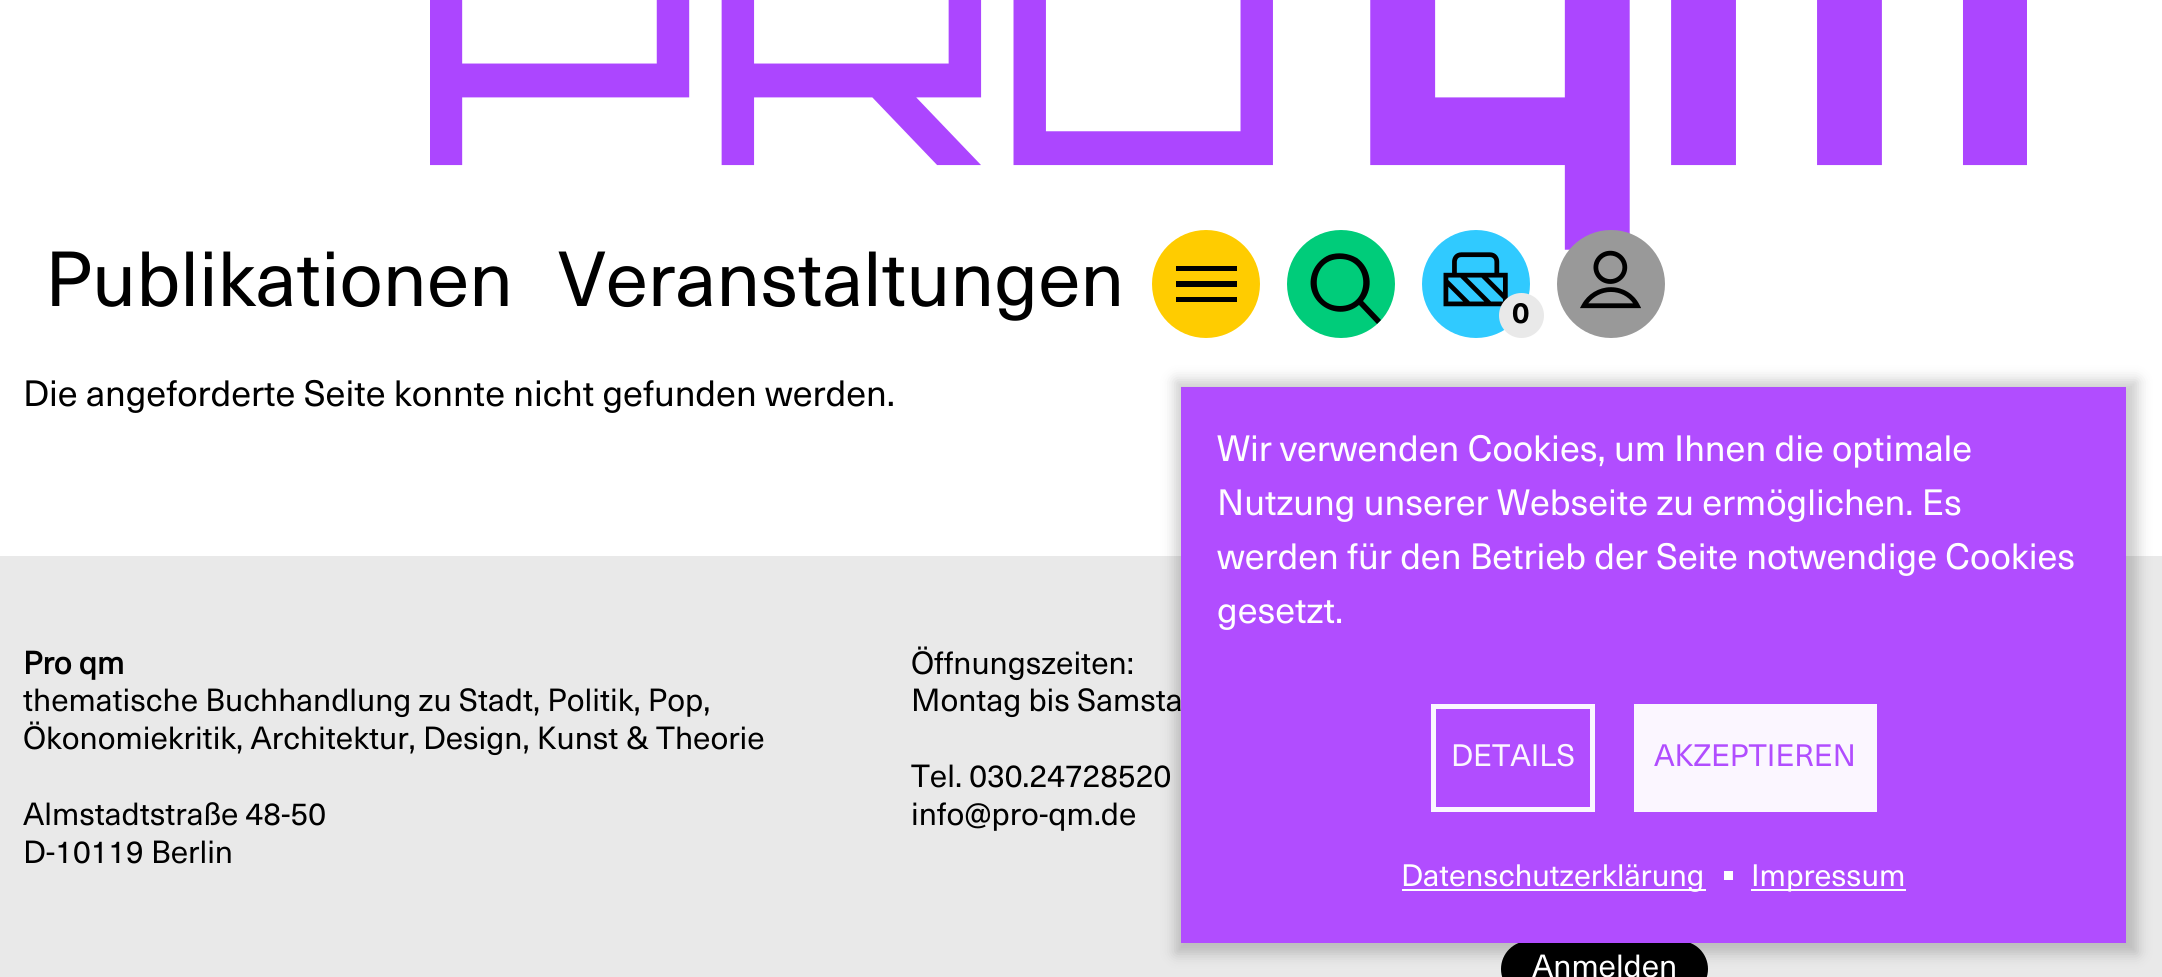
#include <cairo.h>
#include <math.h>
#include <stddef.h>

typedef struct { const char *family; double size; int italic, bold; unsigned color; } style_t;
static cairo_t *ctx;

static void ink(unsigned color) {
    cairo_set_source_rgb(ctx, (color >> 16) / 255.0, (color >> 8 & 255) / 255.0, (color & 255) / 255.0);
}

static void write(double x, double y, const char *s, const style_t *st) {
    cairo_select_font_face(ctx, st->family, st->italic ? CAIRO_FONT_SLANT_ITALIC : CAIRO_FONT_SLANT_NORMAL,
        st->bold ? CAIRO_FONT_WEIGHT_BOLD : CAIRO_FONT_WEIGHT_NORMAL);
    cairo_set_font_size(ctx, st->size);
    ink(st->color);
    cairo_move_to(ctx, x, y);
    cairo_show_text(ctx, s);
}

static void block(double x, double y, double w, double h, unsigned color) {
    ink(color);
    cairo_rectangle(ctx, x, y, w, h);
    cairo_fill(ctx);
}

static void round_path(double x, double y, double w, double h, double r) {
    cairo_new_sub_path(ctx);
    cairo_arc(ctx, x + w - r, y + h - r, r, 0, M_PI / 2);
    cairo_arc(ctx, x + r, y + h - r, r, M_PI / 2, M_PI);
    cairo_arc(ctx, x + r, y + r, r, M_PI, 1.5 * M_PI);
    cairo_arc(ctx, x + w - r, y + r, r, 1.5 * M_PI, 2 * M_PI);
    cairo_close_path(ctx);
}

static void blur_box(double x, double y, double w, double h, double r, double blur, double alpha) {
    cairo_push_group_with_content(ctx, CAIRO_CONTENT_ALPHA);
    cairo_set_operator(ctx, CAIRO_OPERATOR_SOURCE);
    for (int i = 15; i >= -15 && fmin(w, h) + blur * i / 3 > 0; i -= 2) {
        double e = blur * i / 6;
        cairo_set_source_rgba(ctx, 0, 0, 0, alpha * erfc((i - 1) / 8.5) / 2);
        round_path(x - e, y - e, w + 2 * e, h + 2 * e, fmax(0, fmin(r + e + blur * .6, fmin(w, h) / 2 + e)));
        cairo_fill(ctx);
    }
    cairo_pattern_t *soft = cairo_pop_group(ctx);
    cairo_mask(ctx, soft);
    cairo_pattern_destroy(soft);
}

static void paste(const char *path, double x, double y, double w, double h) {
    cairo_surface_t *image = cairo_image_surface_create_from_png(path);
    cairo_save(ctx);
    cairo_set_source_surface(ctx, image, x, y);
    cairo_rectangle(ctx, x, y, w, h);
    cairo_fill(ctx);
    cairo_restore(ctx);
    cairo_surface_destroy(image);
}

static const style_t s1 = {"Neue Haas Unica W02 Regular", 76.5, 0, 0, 0x000000};
static const style_t s2 = {"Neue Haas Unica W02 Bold", 29, 0, 1, 0x000000};
static const style_t s3 = {"Neue Haas Unica W02 Regular", 36, 0, 0, 0x000000};
static const style_t s4 = {"Neue Haas Unica W02 Regular", 36, 0, 0, 0xffffff};
static const style_t s5 = {"Neue Haas Unica W02 Regular", 30.5, 0, 0, 0xfbf6ff};
static const style_t s6 = {"Neue Haas Unica W02 Regular", 30.5, 0, 0, 0xb14dff};
static const style_t s7 = {"Neue Haas Unica W02 Regular", 30.5, 0, 0, 0xffffff};
static const style_t s8 = {"Neue Haas Unica W02 Regular", 31.5, 0, 1, 0x000000};
static const style_t s9 = {"Neue Haas Unica W02 Regular", 31.5, 0, 0, 0x000000};
static const style_t s10 = {"Neue Haas Unica W02 Regular", 31.5, 0, 0, 0xffffff};

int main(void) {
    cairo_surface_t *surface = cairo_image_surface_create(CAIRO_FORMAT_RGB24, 2162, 977);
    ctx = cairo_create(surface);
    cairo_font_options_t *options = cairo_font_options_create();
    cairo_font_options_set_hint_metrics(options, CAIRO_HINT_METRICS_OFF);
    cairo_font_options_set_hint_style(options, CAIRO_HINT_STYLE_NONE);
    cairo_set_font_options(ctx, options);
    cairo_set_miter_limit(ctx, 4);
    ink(0xffffff);
    cairo_paint(ctx);
    paste("pic1.png", 430, 0, 1597, 250);
    write(45, 306, "Publikationen", &s1);
    write(558, 306, "Veranstaltungen", &s1);
    ink(0xffcc00);
    cairo_new_path(ctx);
    cairo_arc(ctx, 1206, 284, 54, 0, 2 * M_PI);
    cairo_fill(ctx);
    block(1176, 297, 61, 5, 0x000000);
    block(1176, 266, 61, 5, 0x000000);
    block(1176, 281, 61, 6, 0x000000);
    ink(0x00cc7a);
    cairo_arc(ctx, 1341, 284, 54, 0, 2 * M_PI);
    cairo_fill(ctx);
    ink(0x000000);
    cairo_new_path(ctx);
    cairo_move_to(ctx, 1363, 301);
    cairo_curve_to(ctx, 1374, 288, 1371, 268, 1357, 258);
    cairo_curve_to(ctx, 1348, 253, 1338, 252, 1329, 255);
    cairo_curve_to(ctx, 1322, 258, 1316, 264, 1313, 271);
    cairo_curve_to(ctx, 1301, 300, 1336, 324, 1359, 305);
    cairo_line_to(ctx, 1377, 324);
    cairo_line_to(ctx, 1381, 320);
    cairo_close_path(ctx);
    cairo_move_to(ctx, 1340, 306);
    cairo_curve_to(ctx, 1309, 306, 1309, 259, 1340, 259);
    cairo_curve_to(ctx, 1371, 259, 1371, 306, 1340, 306);
    cairo_close_path(ctx);
    cairo_fill(ctx);
    ink(0x30caff);
    cairo_arc(ctx, 1476, 284, 54, 0, 2 * M_PI);
    cairo_fill(ctx);
    paste("pic2.png", 1443, 252, 65, 55);
    ink(0xe9e9e9);
    cairo_arc(ctx, 1521.5, 315.5, 22.5, 0, 2 * M_PI);
    cairo_fill(ctx);
    write(1512, 323, "0", &s2);
    ink(0x999999);
    cairo_new_path(ctx);
    cairo_arc(ctx, 1611, 284, 54, 0, 2 * M_PI);
    cairo_fill(ctx);
    paste("pic3.png", 1580, 250, 61, 59);
    write(23, 406, "Die angeforderte Seite konnte nicht gefunden werden.", &s3);
    block(0, 556, 2162, 421, 0xe9e9e9);
    ink(0x000000);
    round_path(1501, 941, 207, 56, 28);
    cairo_fill(ctx);
    ink(0x000000);
    blur_box(1175, 380, 963, 574, 0, 7, 0.2);
    block(1181, 387, 945, 556, 0xb14dff);
    write(1217, 461, "Wir verwenden Cookies, um Ihnen die optimale", &s4);
    write(1217, 515, "Nutzung unserer Webseite zu ermöglichen. Es", &s4);
    write(1217, 569, "werden für den Betrieb der Seite notwendige Cookies", &s4);
    write(1217, 623, "gesetzt.", &s4);
    cairo_rectangle(ctx, 1433.5, 706.5, 159, 103);
    ink(0xfbf6ff);
    cairo_set_line_width(ctx, 5);
    cairo_stroke(ctx);
    write(1451, 766, "DETAILS", &s5);
    block(1634, 704, 243, 108, 0xfbf6ff);
    write(1654, 766, "AKZEPTIEREN", &s6);
    block(1402, 889, 304, 2, 0xffffff);
    write(1401, 886, "Datenschutzerklärung", &s7);
    block(1724, 871, 9, 9, 0xffffff);
    block(1751, 889, 155, 2, 0xffffff);
    write(1751, 886, "Impressum", &s7);
    write(23, 674, "Pro qm", &s8);
    write(23, 711, "thematische Buchhandlung zu Stadt, Politik, Pop,", &s9);
    write(23, 749, "Ökonomiekritik, Architektur, Design, Kunst & Theorie", &s9);
    write(23, 825, "Almstadtstraße 48-50", &s9);
    write(23, 863, "D-10119 Berlin", &s9);
    write(911, 674, "Öffnungszeiten:", &s9);
    write(911, 711, "Montag bis Samsta", &s9);
    write(911, 787, "Tel. 030.24728520", &s9);
    write(911, 825, "info@pro-qm.de", &s9);
    write(1532, 977, "Anmelden", &s10);
    cairo_surface_write_to_png(surface, "screenshot.png");
    cairo_font_options_destroy(options);
    cairo_destroy(ctx);
    cairo_surface_destroy(surface);
    return 0;
}
